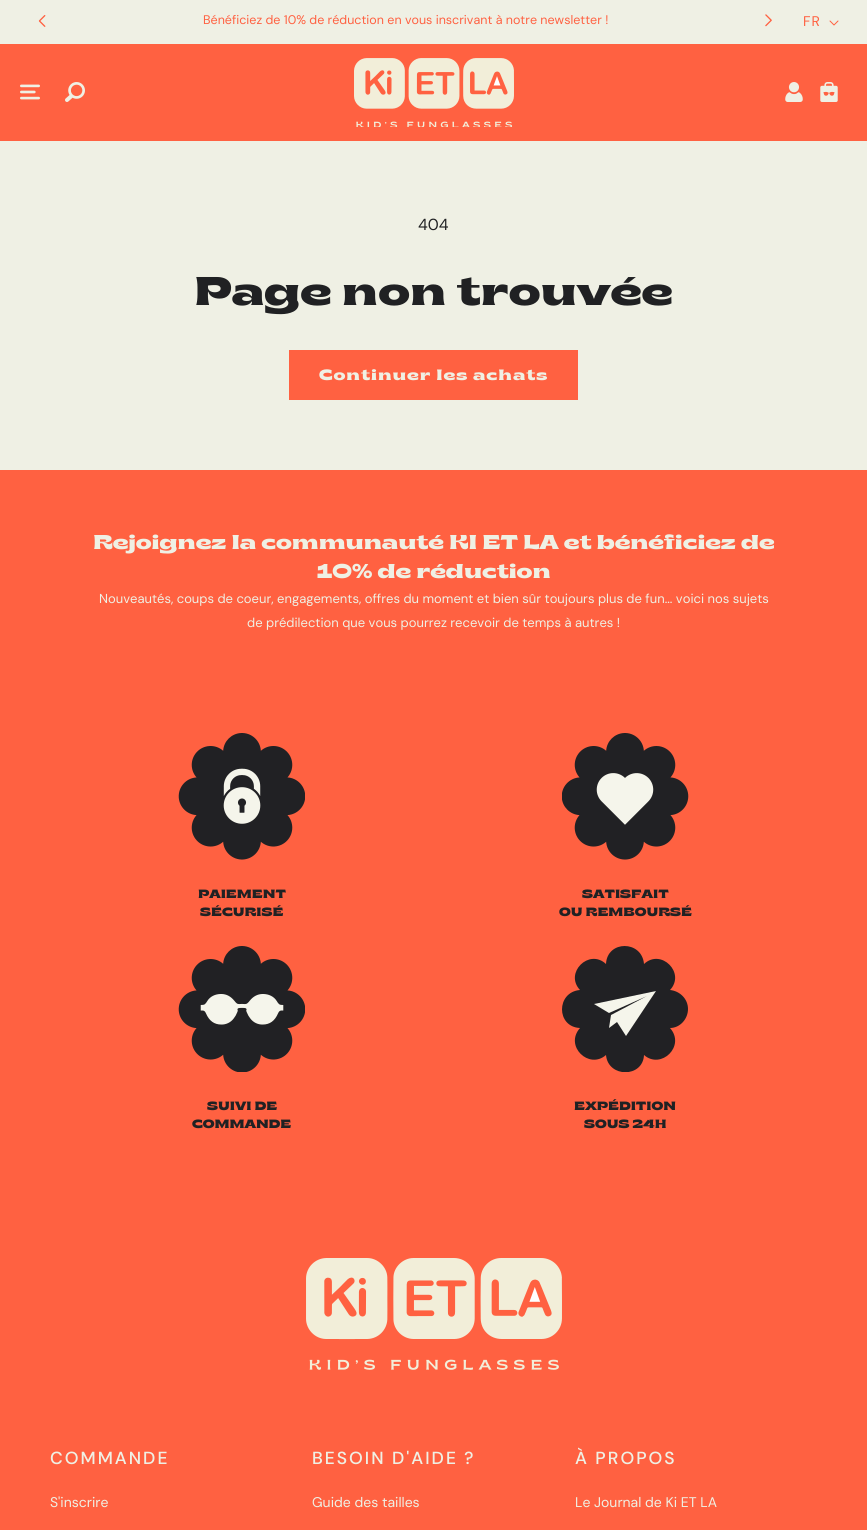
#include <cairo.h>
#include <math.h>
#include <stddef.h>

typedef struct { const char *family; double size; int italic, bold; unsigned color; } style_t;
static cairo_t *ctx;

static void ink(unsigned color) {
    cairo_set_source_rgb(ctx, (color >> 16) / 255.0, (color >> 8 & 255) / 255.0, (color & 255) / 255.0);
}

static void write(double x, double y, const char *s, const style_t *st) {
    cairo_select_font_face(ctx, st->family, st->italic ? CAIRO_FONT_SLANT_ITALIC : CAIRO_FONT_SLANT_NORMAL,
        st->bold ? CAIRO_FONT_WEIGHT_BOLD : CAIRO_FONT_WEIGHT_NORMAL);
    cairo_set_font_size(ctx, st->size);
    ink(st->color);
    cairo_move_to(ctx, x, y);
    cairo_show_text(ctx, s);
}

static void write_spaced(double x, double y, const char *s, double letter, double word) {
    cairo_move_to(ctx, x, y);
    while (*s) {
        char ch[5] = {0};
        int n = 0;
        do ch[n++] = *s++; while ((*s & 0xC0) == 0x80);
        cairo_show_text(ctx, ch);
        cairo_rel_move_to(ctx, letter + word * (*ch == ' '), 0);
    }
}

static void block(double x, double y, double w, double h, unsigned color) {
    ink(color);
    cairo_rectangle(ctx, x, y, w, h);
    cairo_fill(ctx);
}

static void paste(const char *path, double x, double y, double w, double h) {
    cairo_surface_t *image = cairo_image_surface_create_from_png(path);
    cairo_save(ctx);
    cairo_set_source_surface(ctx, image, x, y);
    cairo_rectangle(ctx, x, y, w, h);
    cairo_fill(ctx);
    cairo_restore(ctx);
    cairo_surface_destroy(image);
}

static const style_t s1 = {"DM Sans", 12.5, 0, 0, 0xff6141};
static const style_t s2 = {"DM Sans", 16, 0, 0, 0x202123};
static const style_t s3 = {"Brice", 40, 0, 1, 0x202123};
static const style_t s4 = {"Brice", 20, 0, 1, 0xeff0e4};
static const style_t s5 = {"DM Sans", 13, 0, 0, 0xeff0e4};
static const style_t s6 = {"Brice", 12, 0, 1, 0x202123};
static const style_t s7 = {"DM Sans", 14, 0, 0, 0xeff0e4};

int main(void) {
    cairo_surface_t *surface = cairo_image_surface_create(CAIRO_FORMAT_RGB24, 867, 1530);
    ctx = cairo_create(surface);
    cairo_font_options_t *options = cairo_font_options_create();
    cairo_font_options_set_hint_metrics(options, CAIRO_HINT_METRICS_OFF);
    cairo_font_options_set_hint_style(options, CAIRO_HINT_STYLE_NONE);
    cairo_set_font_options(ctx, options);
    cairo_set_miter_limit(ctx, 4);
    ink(0xeff0e4);
    cairo_paint(ctx);
    paste("pic1.png", 38, 15, 8, 12);
    write(203, 24, "Bénéficiez de 10% de réduction en vous inscrivant à notre newsletter !", &s1);
    paste("pic2.png", 765, 14, 7, 13);
    cairo_set_font_size(ctx, 14);
    write_spaced(803, 26, "FR", 1, 0);
    paste("pic3.png", 829, 20, 10, 6);
    block(0, 44, 867, 97, 0xff6141);
    paste("pic4.png", 20, 84, 20, 16);
    paste("pic5.png", 65, 82, 20, 20);
    paste("pic6.png", 354, 58, 160, 69);
    paste("pic7.png", 785, 82, 18, 20);
    paste("pic8.png", 820, 82, 18, 20);
    write(418, 230, "404", &s2);
    write(194, 305, "Page non trouvée", &s3);
    block(289, 350, 289, 50, 0xff6141);
    cairo_set_font_size(ctx, 15);
    ink(0xeff0e4);
    write_spaced(319, 380, "Continuer les achats", 1, 0);
    block(0, 470, 867, 1060, 0xff6141);
    write(93, 549, "Rejoignez la communauté KI ET LA et bénéficiez de", &s4);
    write(317, 578, "10% de réduction", &s4);
    write(99, 603, "Nouveautés, coups de coeur, engagements, offres du moment et bien sûr toujours plus de fun... voici nos sujets", &s5);
    write(247, 627, "de prédilection que vous pourrez recevoir de temps à autres !", &s5);
    paste("pic9.png", 178, 733, 127, 127);
    write(198, 898, "PAIEMENT", &s6);
    write(200, 916, "SÉCURISÉ", &s6);
    paste("pic10.png", 562, 733, 127, 127);
    write(582, 898, "SATISFAIT", &s6);
    write(559, 916, "OU REMBOURSÉ", &s6);
    paste("pic11.png", 178, 946, 127, 126);
    write(207, 1110, "SUIVI DE", &s6);
    write(192, 1128, "COMMANDE", &s6);
    cairo_save(ctx);
    cairo_rectangle(ctx, 562, 946, 127, 126);
    cairo_clip(ctx);
    ink(0x212124);
    cairo_new_path(ctx);
    cairo_move_to(ctx, 688, 1009);
    cairo_curve_to(ctx, 688, 999, 680, 991, 670, 990);
    cairo_curve_to(ctx, 686, 973, 661, 948, 644, 964);
    cairo_curve_to(ctx, 642, 940, 607, 940, 606, 964);
    cairo_curve_to(ctx, 589, 948, 564, 973, 580, 990);
    cairo_curve_to(ctx, 556, 992, 556, 1027, 580, 1028);
    cairo_curve_to(ctx, 564, 1046, 589, 1070, 606, 1055);
    cairo_curve_to(ctx, 608, 1078, 643, 1078, 644, 1055);
    cairo_curve_to(ctx, 661, 1070, 686, 1046, 670, 1028);
    cairo_curve_to(ctx, 680, 1028, 688, 1019, 688, 1009);
    cairo_fill(ctx);
    cairo_restore(ctx);
    ink(0xf5f5eb);
    cairo_new_path(ctx);
    cairo_move_to(ctx, 594, 1004);
    cairo_line_to(ctx, 656, 991);
    cairo_line_to(ctx, 626, 1036);
    cairo_line_to(ctx, 617, 1022);
    cairo_line_to(ctx, 609, 1028);
    cairo_line_to(ctx, 611, 1015);
    cairo_line_to(ctx, 647, 996);
    cairo_line_to(ctx, 609, 1013);
    cairo_close_path(ctx);
    cairo_fill(ctx);
    write(574, 1110, "EXPÉDITION", &s6);
    write(584, 1128, "SOUS 24H", &s6);
    paste("pic12.png", 306, 1258, 256, 112);
    cairo_select_font_face(ctx, "DM Sans Medium", CAIRO_FONT_SLANT_NORMAL, CAIRO_FONT_WEIGHT_NORMAL);
    cairo_set_font_size(ctx, 17.5);
    ink(0xeff0e4);
    write_spaced(50, 1464, "COMMANDE", 2, 0);
    write(50, 1507, "S'inscrire", &s7);
    cairo_select_font_face(ctx, "DM Sans Medium", CAIRO_FONT_SLANT_NORMAL, CAIRO_FONT_WEIGHT_NORMAL);
    cairo_set_font_size(ctx, 17.5);
    write_spaced(312, 1464, "BESOIN D'AIDE ?", 2, 0);
    write(312, 1507, "Guide des tailles", &s7);
    cairo_select_font_face(ctx, "DM Sans Medium", CAIRO_FONT_SLANT_NORMAL, CAIRO_FONT_WEIGHT_NORMAL);
    cairo_set_font_size(ctx, 17.5);
    write_spaced(575, 1464, "À PROPOS", 2, 0);
    write(575, 1507, "Le Journal de Ki ET LA", &s7);
    cairo_surface_write_to_png(surface, "screenshot.png");
    cairo_font_options_destroy(options);
    cairo_destroy(ctx);
    cairo_surface_destroy(surface);
    return 0;
}
